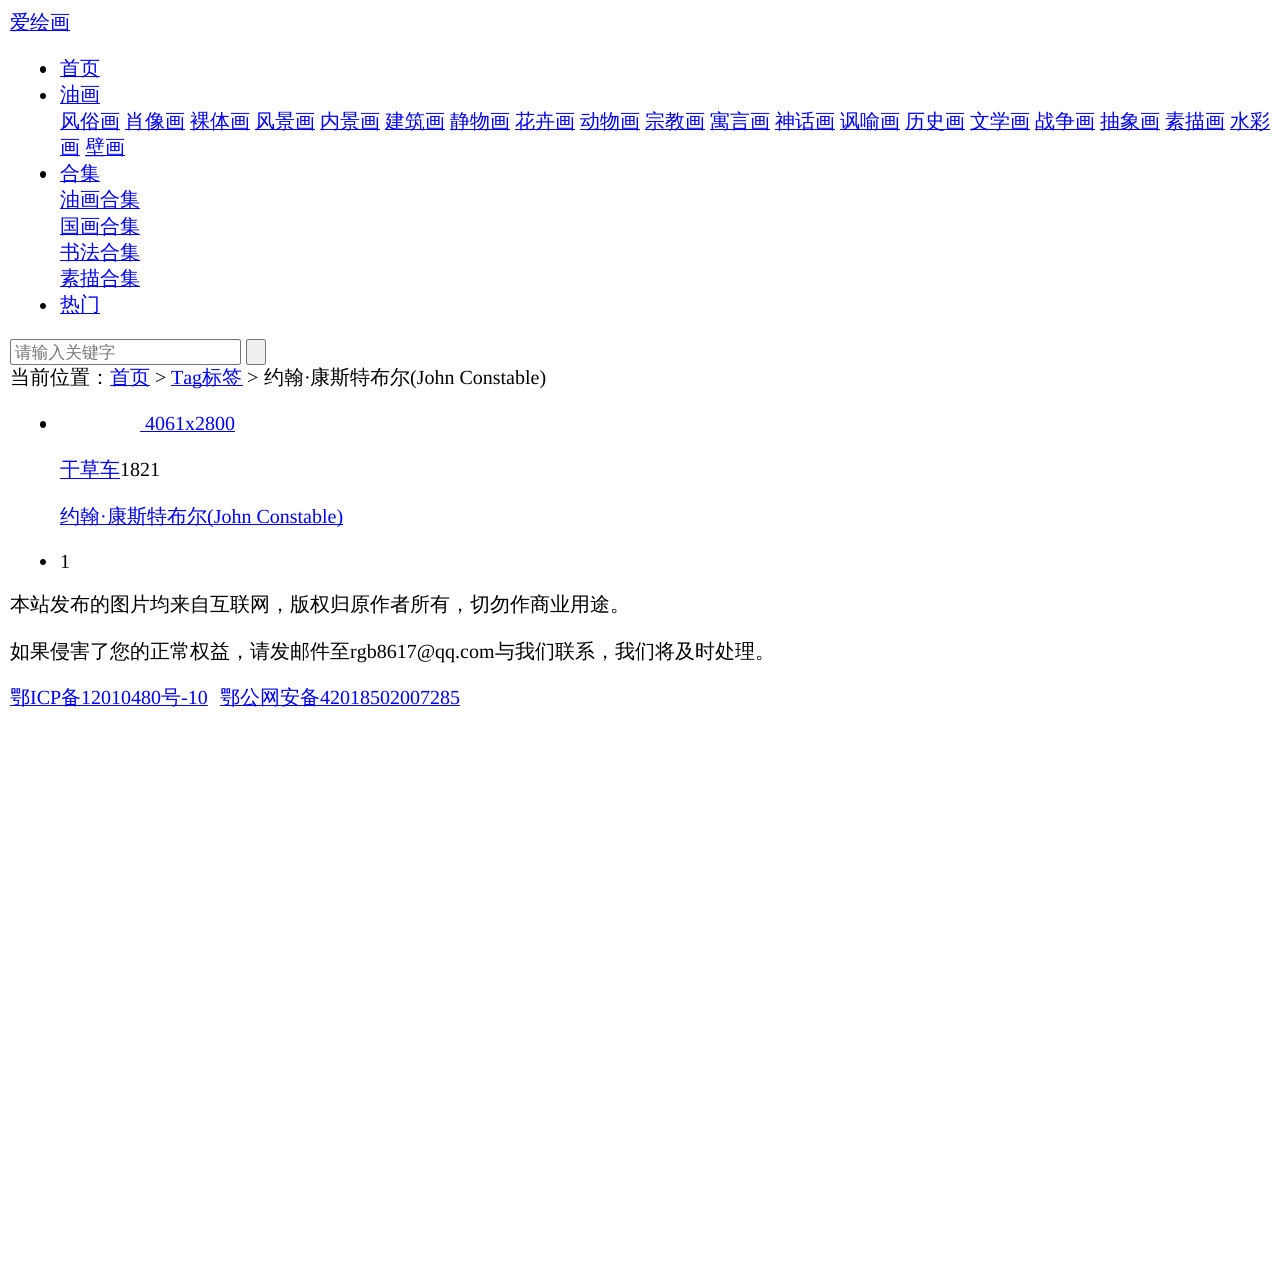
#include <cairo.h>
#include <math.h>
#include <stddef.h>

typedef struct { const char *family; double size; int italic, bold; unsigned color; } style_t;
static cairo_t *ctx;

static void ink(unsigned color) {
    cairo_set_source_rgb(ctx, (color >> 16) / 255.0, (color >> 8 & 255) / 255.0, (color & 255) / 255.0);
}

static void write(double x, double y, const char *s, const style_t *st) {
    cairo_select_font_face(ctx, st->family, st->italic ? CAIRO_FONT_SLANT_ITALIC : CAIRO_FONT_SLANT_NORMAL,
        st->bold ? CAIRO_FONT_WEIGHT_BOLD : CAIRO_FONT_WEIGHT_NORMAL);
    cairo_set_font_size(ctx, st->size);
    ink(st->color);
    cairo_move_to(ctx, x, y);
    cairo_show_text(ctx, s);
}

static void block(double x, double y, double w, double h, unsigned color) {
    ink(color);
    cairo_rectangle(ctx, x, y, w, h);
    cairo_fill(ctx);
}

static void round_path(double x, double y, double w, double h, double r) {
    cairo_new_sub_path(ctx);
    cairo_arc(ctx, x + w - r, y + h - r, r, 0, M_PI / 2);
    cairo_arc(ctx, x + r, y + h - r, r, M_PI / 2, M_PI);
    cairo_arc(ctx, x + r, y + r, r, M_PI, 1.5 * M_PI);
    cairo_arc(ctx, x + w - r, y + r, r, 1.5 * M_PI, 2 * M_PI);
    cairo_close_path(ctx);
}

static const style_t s1 = {"WenQuanYi Zen Hei Medium", 20, 0, 0, 0x0000ee};
static const style_t s2 = {"WenQuanYi Zen Hei Medium", 16.75, 0, 0, 0x757575};
static const style_t s3 = {"WenQuanYi Zen Hei Medium", 20, 0, 0, 0x000000};
static const style_t s4 = {"Liberation Serif", 20, 0, 0, 0x000000};
static const style_t s5 = {"Liberation Serif", 20, 0, 0, 0x0000ee};

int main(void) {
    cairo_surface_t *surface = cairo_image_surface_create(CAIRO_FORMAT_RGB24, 1281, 1279);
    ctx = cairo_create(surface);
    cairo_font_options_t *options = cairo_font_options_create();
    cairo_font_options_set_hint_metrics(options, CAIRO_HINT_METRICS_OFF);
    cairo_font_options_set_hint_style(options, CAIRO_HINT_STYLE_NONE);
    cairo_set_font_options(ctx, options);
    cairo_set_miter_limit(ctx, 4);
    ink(0xffffff);
    cairo_paint(ctx);
    block(10, 30, 60, 1, 0x0000ee);
    write(10, 29, "爱绘画", &s1);
    ink(0x000000);
    round_path(40, 66, 6, 7, 3);
    cairo_fill(ctx);
    block(60, 76, 40, 1, 0x0000ee);
    write(60, 75, "首页", &s1);
    ink(0x000000);
    cairo_new_path(ctx);
    cairo_arc(ctx, 43, 96, 3, 0, 2 * M_PI);
    cairo_fill(ctx);
    block(60, 103, 40, 1, 0x0000ee);
    write(60, 101, "油画", &s1);
    block(60, 129, 60, 1, 0x0000ee);
    write(60, 128, "风俗画", &s1);
    block(125, 129, 60, 1, 0x0000ee);
    write(125, 128, "肖像画", &s1);
    block(190, 129, 60, 1, 0x0000ee);
    write(190, 128, "裸体画", &s1);
    block(255, 129, 60, 1, 0x0000ee);
    write(255, 128, "风景画", &s1);
    block(320, 129, 60, 1, 0x0000ee);
    write(320, 128, "内景画", &s1);
    block(385, 129, 60, 1, 0x0000ee);
    write(385, 128, "建筑画", &s1);
    block(450, 129, 60, 1, 0x0000ee);
    write(450, 128, "静物画", &s1);
    block(515, 129, 60, 1, 0x0000ee);
    write(515, 128, "花卉画", &s1);
    block(580, 129, 60, 1, 0x0000ee);
    write(580, 128, "动物画", &s1);
    block(645, 129, 60, 1, 0x0000ee);
    write(645, 128, "宗教画", &s1);
    block(710, 129, 60, 1, 0x0000ee);
    write(710, 128, "寓言画", &s1);
    block(775, 129, 60, 1, 0x0000ee);
    write(775, 128, "神话画", &s1);
    block(840, 129, 60, 1, 0x0000ee);
    write(840, 128, "讽喻画", &s1);
    block(905, 129, 60, 1, 0x0000ee);
    write(905, 128, "历史画", &s1);
    block(970, 129, 60, 1, 0x0000ee);
    write(970, 128, "文学画", &s1);
    block(1035, 129, 60, 1, 0x0000ee);
    write(1035, 128, "战争画", &s1);
    block(1100, 129, 60, 1, 0x0000ee);
    write(1100, 128, "抽象画", &s1);
    block(1165, 129, 60, 1, 0x0000ee);
    write(1165, 128, "素描画", &s1);
    block(1230, 129, 40, 1, 0x0000ee);
    write(1230, 128, "水彩", &s1);
    block(60, 155, 20, 1, 0x0000ee);
    write(60, 154, "画", &s1);
    block(85, 155, 40, 1, 0x0000ee);
    write(85, 154, "壁画", &s1);
    ink(0x000000);
    round_path(40, 171, 6, 7, 3);
    cairo_fill(ctx);
    block(60, 181, 40, 1, 0x0000ee);
    write(60, 180, "合集", &s1);
    block(60, 208, 80, 1, 0x0000ee);
    write(60, 206, "油画合集", &s1);
    block(60, 234, 80, 1, 0x0000ee);
    write(60, 233, "国画合集", &s1);
    block(60, 260, 80, 1, 0x0000ee);
    write(60, 259, "书法合集", &s1);
    block(60, 286, 80, 1, 0x0000ee);
    write(60, 285, "素描合集", &s1);
    ink(0x000000);
    cairo_new_path(ctx);
    cairo_arc(ctx, 43, 306, 3, 0, 2 * M_PI);
    cairo_fill(ctx);
    block(60, 313, 40, 1, 0x0000ee);
    write(60, 311, "热门", &s1);
    round_path(10.5, 339.5, 230, 25, 2);
    ink(0x767676);
    cairo_set_line_width(ctx, 1);
    cairo_stroke(ctx);
    write(15, 358, "请输入关键字", &s2);
    ink(0xefefef);
    round_path(246.5, 339.5, 19, 25, 2);
    cairo_fill_preserve(ctx);
    ink(0x767676);
    cairo_stroke(ctx);
    write(10, 384, "当前位置：", &s3);
    block(110, 385, 40, 1, 0x0000ee);
    write(110, 384, "首页", &s1);
    write(155, 384, ">", &s4);
    block(171, 385, 72, 1, 0x0000ee);
    write(171, 384, "Tag", &s5);
    write(202, 384, "标签", &s1);
    write(247, 384, ">", &s4);
    write(264, 384, "约翰", &s3);
    write(304, 384, "·", &s4);
    write(310, 384, "康斯特布尔", &s3);
    write(410, 384, "(John Constable)", &s4);
    round_path(40, 421, 6, 7, 3);
    cairo_fill(ctx);
    write(145, 430, "4061x2800", &s5);
    block(140, 431, 95, 1, 0x0000ee);
    block(60, 478, 60, 1, 0x0000ee);
    write(60, 476, "干草车", &s1);
    write(120, 476, "1821", &s4);
    block(60, 524, 283, 1, 0x0000ee);
    write(60, 523, "约翰", &s1);
    write(100, 523, "·", &s5);
    write(107, 523, "康斯特布尔", &s1);
    write(207, 523, "(John Constable)", &s5);
    ink(0x000000);
    cairo_new_path(ctx);
    cairo_arc(ctx, 43, 562, 3, 0, 2 * M_PI);
    cairo_fill(ctx);
    write(60, 568, "1", &s4);
    write(10, 611, "本站发布的图片均来自互联网，版权归原作者所有，切勿作商业用途。", &s3);
    write(10, 658, "如果侵害了您的正常权益，请发邮件至", &s3);
    write(350, 658, "rgb8617@qq.com", &s4);
    write(495, 658, "与我们联系，我们将及时处理。", &s3);
    block(10, 705, 198, 1, 0x0000ee);
    write(10, 704, "鄂", &s1);
    write(30, 704, "ICP", &s5);
    write(61, 704, "备", &s1);
    write(81, 704, "12010480", &s5);
    write(161, 704, "号", &s1);
    write(181, 704, "-10", &s5);
    block(220, 705, 240, 1, 0x0000ee);
    write(220, 704, "鄂公网安备", &s1);
    write(320, 704, "42018502007285", &s5);
    cairo_surface_write_to_png(surface, "screenshot.png");
    cairo_font_options_destroy(options);
    cairo_destroy(ctx);
    cairo_surface_destroy(surface);
    return 0;
}
